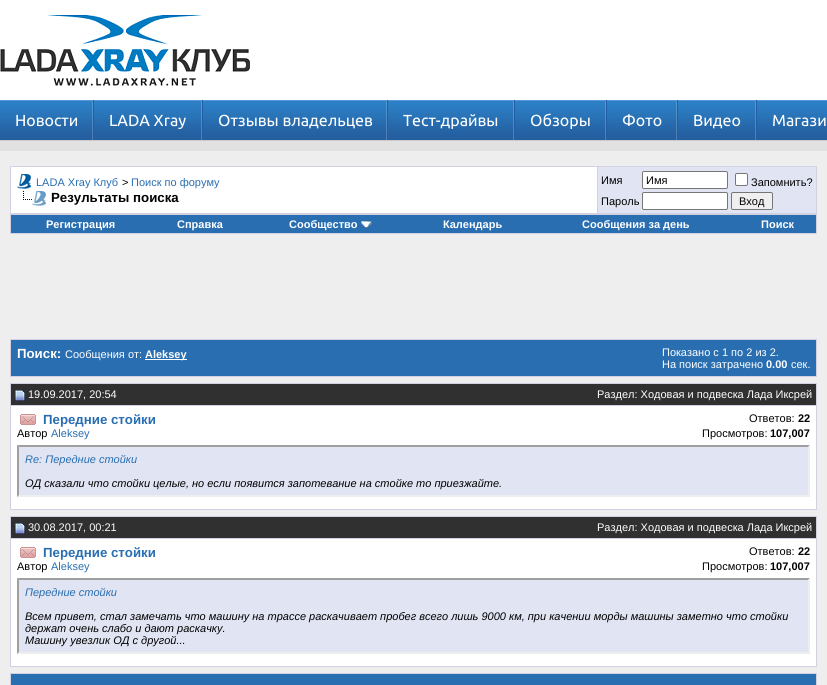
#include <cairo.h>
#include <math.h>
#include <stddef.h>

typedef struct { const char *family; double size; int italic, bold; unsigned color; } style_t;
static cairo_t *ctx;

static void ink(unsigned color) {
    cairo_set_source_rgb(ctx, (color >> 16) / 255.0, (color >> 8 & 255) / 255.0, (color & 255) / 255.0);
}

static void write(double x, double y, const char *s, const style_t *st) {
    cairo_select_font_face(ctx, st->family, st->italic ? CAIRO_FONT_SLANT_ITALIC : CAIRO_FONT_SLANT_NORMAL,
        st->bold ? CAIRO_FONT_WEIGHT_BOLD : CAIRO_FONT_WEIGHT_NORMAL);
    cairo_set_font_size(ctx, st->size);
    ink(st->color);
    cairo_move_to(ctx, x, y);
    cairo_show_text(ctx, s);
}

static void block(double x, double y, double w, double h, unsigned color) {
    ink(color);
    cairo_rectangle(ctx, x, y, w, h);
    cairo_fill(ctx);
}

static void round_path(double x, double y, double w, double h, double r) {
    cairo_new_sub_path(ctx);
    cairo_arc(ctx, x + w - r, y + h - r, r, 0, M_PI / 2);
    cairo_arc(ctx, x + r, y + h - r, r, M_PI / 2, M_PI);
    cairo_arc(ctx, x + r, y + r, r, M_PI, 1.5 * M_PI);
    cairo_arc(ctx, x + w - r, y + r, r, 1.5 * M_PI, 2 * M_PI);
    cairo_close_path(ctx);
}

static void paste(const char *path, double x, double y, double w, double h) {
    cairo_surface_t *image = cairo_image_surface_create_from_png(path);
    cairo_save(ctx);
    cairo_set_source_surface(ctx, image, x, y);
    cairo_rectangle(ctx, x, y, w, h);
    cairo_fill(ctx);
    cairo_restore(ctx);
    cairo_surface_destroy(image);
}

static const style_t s1 = {"Ubuntu", 16, 0, 0, 0xffffff};
static const style_t s2 = {"Liberation Sans", 11, 0, 0, 0x286eb1};
static const style_t s3 = {"Liberation Sans", 11, 0, 0, 0x000000};
static const style_t s4 = {"Liberation Sans", 13.25, 0, 1, 0x000000};
static const style_t s5 = {"Liberation Sans", 11, 0, 1, 0xffffff};
static const style_t s6 = {"Liberation Sans", 13.25, 0, 1, 0xffffff};
static const style_t s7 = {"Liberation Sans", 11, 0, 0, 0xffffff};
static const style_t s8 = {"Liberation Sans", 13.25, 0, 1, 0x286eb1};
static const style_t s9 = {"Liberation Sans", 11, 0, 1, 0x000000};
static const style_t s10 = {"Liberation Sans", 11, 1, 0, 0x286eb1};
static const style_t s11 = {"Liberation Sans", 11, 1, 0, 0x000000};

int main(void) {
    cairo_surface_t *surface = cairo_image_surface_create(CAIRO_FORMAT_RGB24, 827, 685);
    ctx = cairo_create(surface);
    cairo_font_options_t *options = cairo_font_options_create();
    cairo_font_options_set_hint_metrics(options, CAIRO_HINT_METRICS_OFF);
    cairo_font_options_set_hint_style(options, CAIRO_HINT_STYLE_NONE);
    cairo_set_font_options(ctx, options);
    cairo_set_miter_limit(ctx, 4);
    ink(0xe1e1e2);
    cairo_paint(ctx);
    block(0, 0, 827, 100, 0xffffff);
    paste("pic1.png", 0, 15, 250, 71);
    paste("pic2.png", 0, 100, 827, 40);
    block(0, 140, 827, 1, 0xcccccc);
    cairo_save(ctx);
    cairo_rectangle(ctx, 0, 100, 93, 40);
    cairo_clip(ctx);
    cairo_set_source_rgba(ctx, 1, 1, 1, 0.2);
    cairo_set_fill_rule(ctx, CAIRO_FILL_RULE_EVEN_ODD);
    cairo_new_path(ctx);
    cairo_move_to(ctx, -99, 1);
    cairo_line_to(ctx, 192, 1);
    cairo_line_to(ctx, 192, 239);
    cairo_line_to(ctx, -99, 239);
    cairo_close_path(ctx);
    cairo_move_to(ctx, -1, 101);
    cairo_line_to(ctx, 92, 101);
    cairo_line_to(ctx, 92, 141);
    cairo_line_to(ctx, -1, 141);
    cairo_close_path(ctx);
    cairo_fill(ctx);
    cairo_restore(ctx);
    block(93, 100, 1, 40, 0x235da4);
    write(15, 126, "Новости", &s1);
    cairo_save(ctx);
    cairo_rectangle(ctx, 94, 100, 108, 40);
    cairo_clip(ctx);
    cairo_set_source_rgba(ctx, 1, 1, 1, 0.2);
    cairo_set_fill_rule(ctx, CAIRO_FILL_RULE_EVEN_ODD);
    cairo_new_path(ctx);
    cairo_move_to(ctx, -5, 1);
    cairo_line_to(ctx, 301, 1);
    cairo_line_to(ctx, 301, 239);
    cairo_line_to(ctx, -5, 239);
    cairo_close_path(ctx);
    cairo_move_to(ctx, 93, 101);
    cairo_line_to(ctx, 201, 101);
    cairo_line_to(ctx, 201, 141);
    cairo_line_to(ctx, 93, 141);
    cairo_close_path(ctx);
    cairo_fill(ctx);
    cairo_restore(ctx);
    block(202, 100, 1, 40, 0x235da4);
    write(109, 126, "LADA Xray", &s1);
    cairo_save(ctx);
    cairo_rectangle(ctx, 203, 100, 184, 40);
    cairo_clip(ctx);
    cairo_set_source_rgba(ctx, 1, 1, 1, 0.2);
    cairo_set_fill_rule(ctx, CAIRO_FILL_RULE_EVEN_ODD);
    cairo_new_path(ctx);
    cairo_move_to(ctx, 104, 1);
    cairo_line_to(ctx, 486, 1);
    cairo_line_to(ctx, 486, 239);
    cairo_line_to(ctx, 104, 239);
    cairo_close_path(ctx);
    cairo_move_to(ctx, 202, 101);
    cairo_line_to(ctx, 386, 101);
    cairo_line_to(ctx, 386, 141);
    cairo_line_to(ctx, 202, 141);
    cairo_close_path(ctx);
    cairo_fill(ctx);
    cairo_restore(ctx);
    block(387, 100, 1, 40, 0x235da4);
    write(218, 126, "Отзывы владельцев", &s1);
    cairo_save(ctx);
    cairo_rectangle(ctx, 388, 100, 126, 40);
    cairo_clip(ctx);
    cairo_set_source_rgba(ctx, 1, 1, 1, 0.2);
    cairo_set_fill_rule(ctx, CAIRO_FILL_RULE_EVEN_ODD);
    cairo_new_path(ctx);
    cairo_move_to(ctx, 289, 1);
    cairo_line_to(ctx, 613, 1);
    cairo_line_to(ctx, 613, 239);
    cairo_line_to(ctx, 289, 239);
    cairo_close_path(ctx);
    cairo_move_to(ctx, 387, 101);
    cairo_line_to(ctx, 513, 101);
    cairo_line_to(ctx, 513, 141);
    cairo_line_to(ctx, 387, 141);
    cairo_close_path(ctx);
    cairo_fill(ctx);
    cairo_restore(ctx);
    block(514, 100, 1, 40, 0x235da4);
    write(403, 126, "Тест-драйвы", &s1);
    cairo_save(ctx);
    cairo_rectangle(ctx, 515, 100, 91, 40);
    cairo_clip(ctx);
    cairo_set_source_rgba(ctx, 1, 1, 1, 0.2);
    cairo_set_fill_rule(ctx, CAIRO_FILL_RULE_EVEN_ODD);
    cairo_new_path(ctx);
    cairo_move_to(ctx, 416, 1);
    cairo_line_to(ctx, 705, 1);
    cairo_line_to(ctx, 705, 239);
    cairo_line_to(ctx, 416, 239);
    cairo_close_path(ctx);
    cairo_move_to(ctx, 514, 101);
    cairo_line_to(ctx, 605, 101);
    cairo_line_to(ctx, 605, 141);
    cairo_line_to(ctx, 514, 141);
    cairo_close_path(ctx);
    cairo_fill(ctx);
    cairo_restore(ctx);
    block(606, 100, 1, 40, 0x235da4);
    write(530, 126, "Обзоры", &s1);
    cairo_save(ctx);
    cairo_rectangle(ctx, 607, 100, 70, 40);
    cairo_clip(ctx);
    cairo_set_source_rgba(ctx, 1, 1, 1, 0.2);
    cairo_set_fill_rule(ctx, CAIRO_FILL_RULE_EVEN_ODD);
    cairo_new_path(ctx);
    cairo_move_to(ctx, 508, 1);
    cairo_line_to(ctx, 776, 1);
    cairo_line_to(ctx, 776, 239);
    cairo_line_to(ctx, 508, 239);
    cairo_close_path(ctx);
    cairo_move_to(ctx, 606, 101);
    cairo_line_to(ctx, 676, 101);
    cairo_line_to(ctx, 676, 141);
    cairo_line_to(ctx, 606, 141);
    cairo_close_path(ctx);
    cairo_fill(ctx);
    cairo_restore(ctx);
    block(677, 100, 1, 40, 0x235da4);
    write(622, 126, "Фото", &s1);
    cairo_save(ctx);
    cairo_rectangle(ctx, 678, 100, 78, 40);
    cairo_clip(ctx);
    cairo_set_source_rgba(ctx, 1, 1, 1, 0.2);
    cairo_set_fill_rule(ctx, CAIRO_FILL_RULE_EVEN_ODD);
    cairo_new_path(ctx);
    cairo_move_to(ctx, 579, 1);
    cairo_line_to(ctx, 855, 1);
    cairo_line_to(ctx, 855, 239);
    cairo_line_to(ctx, 579, 239);
    cairo_close_path(ctx);
    cairo_move_to(ctx, 677, 101);
    cairo_line_to(ctx, 755, 101);
    cairo_line_to(ctx, 755, 141);
    cairo_line_to(ctx, 677, 141);
    cairo_close_path(ctx);
    cairo_fill(ctx);
    cairo_restore(ctx);
    block(756, 100, 1, 40, 0x235da4);
    write(693, 126, "Видео", &s1);
    cairo_save(ctx);
    cairo_rectangle(ctx, 757, 100, 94, 40);
    cairo_clip(ctx);
    ink(0x5699d2);
    cairo_set_fill_rule(ctx, CAIRO_FILL_RULE_EVEN_ODD);
    cairo_new_path(ctx);
    cairo_move_to(ctx, 658, 1);
    cairo_line_to(ctx, 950, 1);
    cairo_line_to(ctx, 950, 239);
    cairo_line_to(ctx, 658, 239);
    cairo_close_path(ctx);
    cairo_move_to(ctx, 756, 101);
    cairo_line_to(ctx, 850, 101);
    cairo_line_to(ctx, 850, 141);
    cairo_line_to(ctx, 756, 141);
    cairo_close_path(ctx);
    cairo_fill(ctx);
    cairo_restore(ctx);
    write(772, 126, "Магази", &s1);
    block(0, 151, 827, 534, 0xeeeeee);
    block(10, 166, 807, 68, 0xd1d1e1);
    block(11, 167, 586, 46, 0xffffff);
    paste("pic3.png", 17, 174, 14, 15);
    write(36, 186, "LADA Xray Клуб", &s2);
    write(122, 186, ">", &s3);
    write(131, 186, "Поиск по форуму", &s2);
    paste("pic4.png", 23, 191, 23, 15);
    write(51, 202, "Результаты поиска", &s4);
    block(598, 167, 218, 46, 0xe1e4f2);
    write(601, 184, "Имя", &s3);
    ink(0xffffff);
    round_path(642.5, 171.5, 85, 17, 1.5);
    cairo_fill_preserve(ctx);
    ink(0x767676);
    cairo_set_line_width(ctx, 1);
    cairo_stroke(ctx);
    write(646, 184, "Имя", &s3);
    ink(0xffffff);
    round_path(735.5, 173.5, 12, 12, 1.5);
    cairo_fill_preserve(ctx);
    ink(0x767676);
    cairo_stroke(ctx);
    write(751, 186, "Запомнить?", &s3);
    write(601, 205, "Пароль", &s3);
    ink(0xffffff);
    round_path(642.5, 192.5, 85, 17, 1.5);
    cairo_fill_preserve(ctx);
    ink(0x767676);
    cairo_stroke(ctx);
    ink(0xefefef);
    round_path(731.5, 192.5, 41, 17, 1.5);
    cairo_fill_preserve(ctx);
    ink(0x767676);
    cairo_stroke(ctx);
    write(739, 205, "Вход", &s3);
    block(11, 215, 805, 18, 0x286eb1);
    write(46, 228, "Регистрация", &s5);
    write(177, 228, "Справка", &s5);
    write(289, 228, "Сообщество", &s5);
    paste("pic5.png", 361, 221, 11, 7);
    write(443, 228, "Календарь", &s5);
    write(582, 228, "Сообщения за день", &s5);
    write(761, 228, "Поиск", &s5);
    block(10, 339, 807, 38, 0xd1d1e1);
    block(11, 340, 805, 36, 0x286eb1);
    write(17, 358, "Поиск:", &s6);
    write(65, 358, "Сообщения от:", &s7);
    block(145, 359, 42, 1, 0xffffff);
    write(145, 358, "Aleksey", &s5);
    write(662, 356, "Показано с 1 по 2 из 2.", &s7);
    write(662, 368, "На поиск затрачено", &s7);
    write(766, 368, "0.00", &s5);
    write(791, 368, "сек.", &s7);
    block(10, 383, 807, 127, 0xd1d1e1);
    block(11, 384, 805, 21, 0x303030);
    paste("pic6.png", 15, 390, 10, 11);
    write(28, 398, "19.09.2017, 20:54", &s7);
    write(597, 398, "Раздел: Ходовая и подвеска Лада Иксрей", &s7);
    block(11, 406, 805, 103, 0xffffff);
    paste("pic7.png", 20, 414, 16, 11);
    write(43, 424, "Передние стойки", &s8);
    write(749, 422, "Ответов:", &s3);
    write(798, 422, "22", &s9);
    write(17, 437, "Автор", &s3);
    write(51, 437, "Aleksey", &s2);
    write(702, 437, "Просмотров:", &s3);
    write(770, 437, "107,007", &s9);
    block(17, 445, 793, 52, 0xe1e4f2);
    ink(0x9f9f9f);
    cairo_new_path(ctx);
    cairo_move_to(ctx, 17, 445);
    cairo_line_to(ctx, 810, 445);
    cairo_line_to(ctx, 808, 447);
    cairo_line_to(ctx, 19, 447);
    cairo_close_path(ctx);
    cairo_fill(ctx);
    ink(0xeeeeee);
    cairo_new_path(ctx);
    cairo_move_to(ctx, 810, 445);
    cairo_line_to(ctx, 810, 497);
    cairo_line_to(ctx, 808, 495);
    cairo_line_to(ctx, 808, 447);
    cairo_close_path(ctx);
    cairo_fill(ctx);
    cairo_new_path(ctx);
    cairo_move_to(ctx, 810, 497);
    cairo_line_to(ctx, 17, 497);
    cairo_line_to(ctx, 19, 495);
    cairo_line_to(ctx, 808, 495);
    cairo_close_path(ctx);
    cairo_fill(ctx);
    ink(0x9f9f9f);
    cairo_new_path(ctx);
    cairo_move_to(ctx, 17, 497);
    cairo_line_to(ctx, 17, 445);
    cairo_line_to(ctx, 19, 447);
    cairo_line_to(ctx, 19, 495);
    cairo_close_path(ctx);
    cairo_fill(ctx);
    write(25, 463, "Re: Передние стойки", &s10);
    write(25, 487, "ОД сказали что стойки целые, но если появится запотевание на стойке то приезжайте.", &s11);
    block(10, 516, 807, 151, 0xd1d1e1);
    block(11, 517, 805, 21, 0x303030);
    paste("pic6.png", 15, 523, 10, 11);
    write(28, 531, "30.08.2017, 00:21", &s7);
    write(597, 531, "Раздел: Ходовая и подвеска Лада Иксрей", &s7);
    block(11, 539, 805, 127, 0xffffff);
    paste("pic7.png", 20, 547, 16, 11);
    write(43, 557, "Передние стойки", &s8);
    write(749, 555, "Ответов:", &s3);
    write(798, 555, "22", &s9);
    write(17, 570, "Автор", &s3);
    write(51, 570, "Aleksey", &s2);
    write(702, 570, "Просмотров:", &s3);
    write(770, 570, "107,007", &s9);
    block(17, 578, 793, 76, 0xe1e4f2);
    ink(0x9f9f9f);
    cairo_new_path(ctx);
    cairo_move_to(ctx, 17, 578);
    cairo_line_to(ctx, 810, 578);
    cairo_line_to(ctx, 808, 580);
    cairo_line_to(ctx, 19, 580);
    cairo_close_path(ctx);
    cairo_fill(ctx);
    ink(0xeeeeee);
    cairo_new_path(ctx);
    cairo_move_to(ctx, 810, 578);
    cairo_line_to(ctx, 810, 654);
    cairo_line_to(ctx, 808, 652);
    cairo_line_to(ctx, 808, 580);
    cairo_close_path(ctx);
    cairo_fill(ctx);
    cairo_new_path(ctx);
    cairo_move_to(ctx, 810, 654);
    cairo_line_to(ctx, 17, 654);
    cairo_line_to(ctx, 19, 652);
    cairo_line_to(ctx, 808, 652);
    cairo_close_path(ctx);
    cairo_fill(ctx);
    ink(0x9f9f9f);
    cairo_new_path(ctx);
    cairo_move_to(ctx, 17, 654);
    cairo_line_to(ctx, 17, 578);
    cairo_line_to(ctx, 19, 580);
    cairo_line_to(ctx, 19, 652);
    cairo_close_path(ctx);
    cairo_fill(ctx);
    write(25, 596, "Передние стойки", &s10);
    write(25, 620, "Всем привет, стал замечать что машину на трассе раскачивает пробег всего лишь 9000 км, при качении морды машины заметно что стойки", &s11);
    write(25, 632, "держат очень слабо и дают раскачку.", &s11);
    write(25, 644, "Машину увезлик ОД с другой...", &s11);
    block(10, 673, 807, 12, 0xd1d1e1);
    block(11, 674, 805, 11, 0x286eb1);
    cairo_surface_write_to_png(surface, "screenshot.png");
    cairo_font_options_destroy(options);
    cairo_destroy(ctx);
    cairo_surface_destroy(surface);
    return 0;
}
